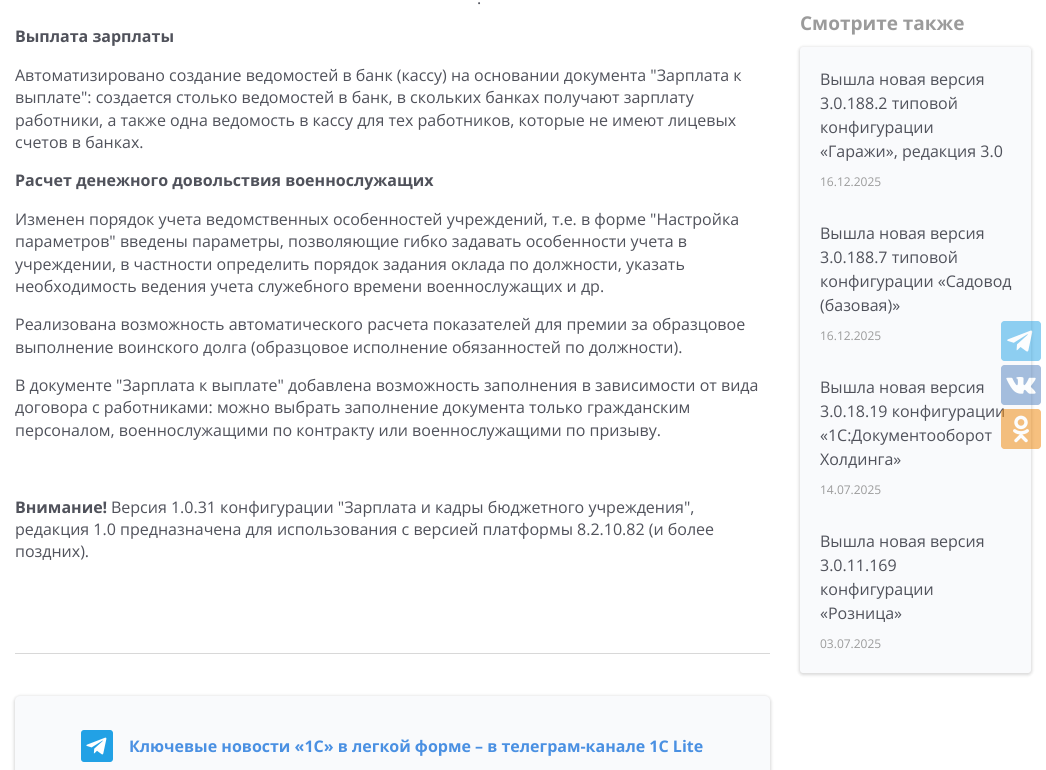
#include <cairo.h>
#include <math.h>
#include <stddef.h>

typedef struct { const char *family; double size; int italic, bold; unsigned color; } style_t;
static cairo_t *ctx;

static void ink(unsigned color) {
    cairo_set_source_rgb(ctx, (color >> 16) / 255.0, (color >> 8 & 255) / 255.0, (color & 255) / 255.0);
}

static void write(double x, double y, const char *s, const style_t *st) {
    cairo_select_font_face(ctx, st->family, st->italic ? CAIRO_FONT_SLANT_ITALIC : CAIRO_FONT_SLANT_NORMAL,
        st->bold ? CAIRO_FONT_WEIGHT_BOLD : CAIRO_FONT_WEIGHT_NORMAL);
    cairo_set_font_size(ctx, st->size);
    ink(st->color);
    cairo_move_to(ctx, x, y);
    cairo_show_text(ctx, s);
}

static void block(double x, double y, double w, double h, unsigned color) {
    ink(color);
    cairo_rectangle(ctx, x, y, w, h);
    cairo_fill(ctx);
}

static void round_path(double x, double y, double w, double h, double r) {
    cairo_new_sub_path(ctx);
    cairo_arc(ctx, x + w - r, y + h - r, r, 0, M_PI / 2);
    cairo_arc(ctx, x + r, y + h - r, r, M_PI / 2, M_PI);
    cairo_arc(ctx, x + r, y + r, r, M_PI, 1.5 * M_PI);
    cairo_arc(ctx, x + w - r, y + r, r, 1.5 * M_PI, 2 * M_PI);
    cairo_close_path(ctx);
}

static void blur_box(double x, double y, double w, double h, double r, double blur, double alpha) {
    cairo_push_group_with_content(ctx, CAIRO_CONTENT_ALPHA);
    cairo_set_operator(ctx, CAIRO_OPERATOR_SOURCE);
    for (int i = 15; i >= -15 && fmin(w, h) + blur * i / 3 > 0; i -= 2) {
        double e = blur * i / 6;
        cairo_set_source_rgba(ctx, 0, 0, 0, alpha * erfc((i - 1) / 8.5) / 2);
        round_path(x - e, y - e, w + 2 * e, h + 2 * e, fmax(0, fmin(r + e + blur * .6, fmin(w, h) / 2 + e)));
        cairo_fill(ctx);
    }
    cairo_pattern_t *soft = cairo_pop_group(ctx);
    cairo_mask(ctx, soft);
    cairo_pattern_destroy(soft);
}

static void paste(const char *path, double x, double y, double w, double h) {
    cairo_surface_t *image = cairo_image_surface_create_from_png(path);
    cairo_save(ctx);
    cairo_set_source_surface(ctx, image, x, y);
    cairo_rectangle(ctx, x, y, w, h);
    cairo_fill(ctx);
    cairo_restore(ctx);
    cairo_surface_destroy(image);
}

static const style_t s1 = {"Open Sans", 16, 0, 0, 0x50525b};
static const style_t s2 = {"Open Sans", 16, 0, 1, 0x50525b};
static const style_t s3 = {"Open Sans", 16, 0, 1, 0x4a90e2};
static const style_t s4 = {"Open Sans", 19, 0, 1, 0x9b9b9b};
static const style_t s5 = {"Open Sans", 12, 0, 0, 0x9b9b9b};

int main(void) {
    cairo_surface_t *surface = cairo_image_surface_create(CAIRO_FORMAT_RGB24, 1046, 770);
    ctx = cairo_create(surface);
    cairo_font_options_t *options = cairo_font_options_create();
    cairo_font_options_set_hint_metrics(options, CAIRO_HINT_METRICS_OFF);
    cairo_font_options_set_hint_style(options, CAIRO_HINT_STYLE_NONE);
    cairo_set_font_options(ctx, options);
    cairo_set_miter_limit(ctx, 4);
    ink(0xffffff);
    cairo_paint(ctx);
    write(477, 4, ".", &s1);
    write(15, 42, "Выплата зарплаты", &s2);
    write(15, 81, "Автоматизировано создание ведомостей в банк (кассу) на основании документа \"Зарплата к", &s1);
    write(15, 103, "выплате\": создается столько ведомостей в банк, в скольких банках получают зарплату", &s1);
    write(15, 126, "работники, а также одна ведомость в кассу для тех работников, которые не имеют лицевых", &s1);
    write(15, 148, "счетов в банках.", &s1);
    write(15, 186, "Расчет денежного довольствия военнослужащих", &s2);
    write(15, 225, "Изменен порядок учета ведомственных особенностей учреждений, т.е. в форме \"Настройка", &s1);
    write(15, 247, "параметров\" введены параметры, позволяющие гибко задавать особенности учета в", &s1);
    write(15, 270, "учреждении, в частности определить порядок задания оклада по должности, указать", &s1);
    write(15, 292, "необходимость ведения учета служебного времени военнослужащих и др.", &s1);
    write(15, 330, "Реализована возможность автоматического расчета показателей для премии за образцовое", &s1);
    write(15, 353, "выполнение воинского долга (образцовое исполнение обязанностей по должности).", &s1);
    write(15, 391, "В документе \"Зарплата к выплате\" добавлена возможность заполнения в зависимости от вида", &s1);
    write(15, 413, "договора с работниками: можно выбрать заполнение документа только гражданским", &s1);
    write(15, 436, "персоналом, военнослужащими по контракту или военнослужащими по призыву.", &s1);
    write(15, 513, "Внимание!", &s2);
    write(111, 513, "Версия 1.0.31 конфигурации \"Зарплата и кадры бюджетного учреждения\",", &s1);
    write(15, 535, "редакция 1.0 предназначена для использования с версией платформы 8.2.10.82 (и более", &s1);
    write(15, 557, "поздних).", &s1);
    block(15, 653, 755, 1, 0xd8d8d8);
    ink(0x000000);
    blur_box(14, 696, 757, 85, 6, 1.5, 0.15);
    ink(0xf9fafc);
    round_path(15, 696, 755, 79, 5);
    cairo_fill(ctx);
    paste("pic1.png", 81, 730, 32, 32);
    write(129, 752, "Ключевые новости «1С» в легкой форме – в телеграм-канале 1С Lite", &s3);
    write(800, 30, "Смотрите также", &s4);
    ink(0x000000);
    blur_box(799, 47, 233, 628, 4, 1.5, 0.15);
    ink(0xf9fafc);
    round_path(800, 47, 231, 626, 3);
    cairo_fill(ctx);
    write(820, 85, "Вышла новая версия", &s1);
    write(820, 109, "3.0.188.2 типовой", &s1);
    write(820, 133, "конфигурации", &s1);
    write(820, 157, "«Гаражи», редакция 3.0", &s1);
    write(820, 186, "16.12.2025", &s5);
    write(820, 239, "Вышла новая версия", &s1);
    write(820, 263, "3.0.188.7 типовой", &s1);
    write(820, 287, "конфигурации «Садовод", &s1);
    write(820, 311, "(базовая)»", &s1);
    write(820, 340, "16.12.2025", &s5);
    write(820, 393, "Вышла новая версия", &s1);
    write(820, 417, "3.0.18.19 конфигурации", &s1);
    write(820, 441, "«1С:Документооборот", &s1);
    write(820, 465, "Холдинга»", &s1);
    write(820, 494, "14.07.2025", &s5);
    write(820, 547, "Вышла новая версия", &s1);
    write(820, 571, "3.0.11.169", &s1);
    write(820, 595, "конфигурации", &s1);
    write(820, 619, "«Розница»", &s1);
    write(820, 648, "03.07.2025", &s5);
    paste("pic2.png", 1001, 321, 40, 40);
    paste("pic3.png", 1001, 365, 40, 40);
    paste("pic4.png", 1001, 409, 40, 40);
    cairo_surface_write_to_png(surface, "screenshot.png");
    cairo_font_options_destroy(options);
    cairo_destroy(ctx);
    cairo_surface_destroy(surface);
    return 0;
}
